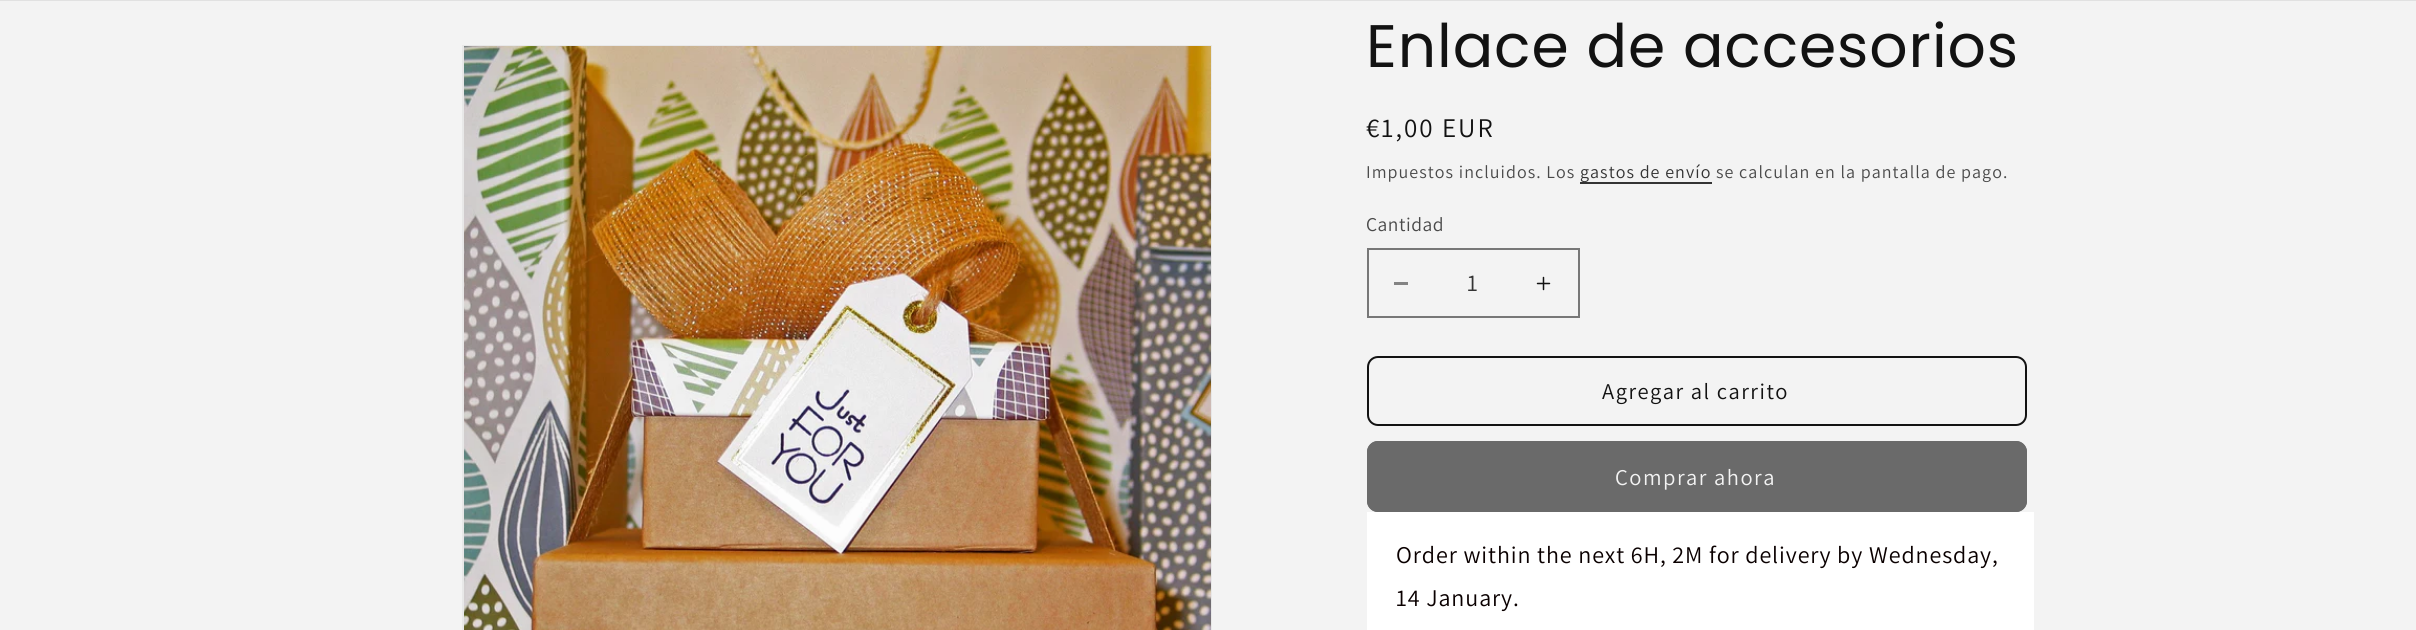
#include <cairo.h>
#include <math.h>
#include <stddef.h>

typedef struct { const char *family; double size; int italic, bold; unsigned color; } style_t;
static cairo_t *ctx;

static void ink(unsigned color) {
    cairo_set_source_rgb(ctx, (color >> 16) / 255.0, (color >> 8 & 255) / 255.0, (color & 255) / 255.0);
}

static void write(double x, double y, const char *s, const style_t *st) {
    cairo_select_font_face(ctx, st->family, st->italic ? CAIRO_FONT_SLANT_ITALIC : CAIRO_FONT_SLANT_NORMAL,
        st->bold ? CAIRO_FONT_WEIGHT_BOLD : CAIRO_FONT_WEIGHT_NORMAL);
    cairo_set_font_size(ctx, st->size);
    ink(st->color);
    cairo_move_to(ctx, x, y);
    cairo_show_text(ctx, s);
}

static void write_spaced(double x, double y, const char *s, double letter, double word) {
    cairo_move_to(ctx, x, y);
    while (*s) {
        char ch[5] = {0};
        int n = 0;
        do ch[n++] = *s++; while ((*s & 0xC0) == 0x80);
        cairo_show_text(ctx, ch);
        cairo_rel_move_to(ctx, letter + word * (*ch == ' '), 0);
    }
}

static void block(double x, double y, double w, double h, unsigned color) {
    ink(color);
    cairo_rectangle(ctx, x, y, w, h);
    cairo_fill(ctx);
}

static void round_path(double x, double y, double w, double h, double r) {
    cairo_new_sub_path(ctx);
    cairo_arc(ctx, x + w - r, y + h - r, r, 0, M_PI / 2);
    cairo_arc(ctx, x + r, y + h - r, r, M_PI / 2, M_PI);
    cairo_arc(ctx, x + r, y + r, r, M_PI, 1.5 * M_PI);
    cairo_arc(ctx, x + w - r, y + r, r, 1.5 * M_PI, 2 * M_PI);
    cairo_close_path(ctx);
}

static void paste(const char *path, double x, double y, double w, double h) {
    cairo_surface_t *image = cairo_image_surface_create_from_png(path);
    cairo_save(ctx);
    cairo_set_source_surface(ctx, image, x, y);
    cairo_rectangle(ctx, x, y, w, h);
    cairo_fill(ctx);
    cairo_restore(ctx);
    cairo_surface_destroy(image);
}

static const style_t s1 = {"Assistant", 24, 0, 0, 0x343434};

int main(void) {
    cairo_surface_t *surface = cairo_image_surface_create(CAIRO_FORMAT_RGB24, 2416, 630);
    ctx = cairo_create(surface);
    cairo_font_options_t *options = cairo_font_options_create();
    cairo_font_options_set_hint_metrics(options, CAIRO_HINT_METRICS_OFF);
    cairo_font_options_set_hint_style(options, CAIRO_HINT_STYLE_NONE);
    cairo_set_font_options(ctx, options);
    cairo_set_miter_limit(ctx, 4);
    ink(0xf3f3f3);
    cairo_paint(ctx);
    cairo_set_source_rgba(ctx, 0.071, 0.071, 0.071, 0.08);
    cairo_rectangle(ctx, 0, 0, 2416, 1);
    cairo_fill(ctx);
    cairo_rectangle(ctx, 463, 46, 748, 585);
    ink(0xe8e8e8);
    cairo_stroke(ctx);
    paste("pic1.png", 464, 46, 747, 584);
    cairo_select_font_face(ctx, "Poppins", CAIRO_FONT_SLANT_NORMAL, CAIRO_FONT_WEIGHT_NORMAL);
    cairo_set_font_size(ctx, 60);
    ink(0x121212);
    write_spaced(1366, 67, "Enlace de accesorios", 0.9, 0);
    cairo_select_font_face(ctx, "Assistant", CAIRO_FONT_SLANT_NORMAL, CAIRO_FONT_WEIGHT_NORMAL);
    cairo_set_font_size(ctx, 27);
    write_spaced(1366, 137, "€1,00 EUR", 2, 0);
    cairo_set_font_size(ctx, 18);
    ink(0x4a4a4a);
    write_spaced(1366, 178, "Impuestos incluidos. Los", 1.05, 0);
    block(1580, 182, 132, 2, 0x343434);
    write_spaced(1580, 178, "gastos de envío", 1.05, 0);
    ink(0x4a4a4a);
    write_spaced(1716, 178, "se calculan en la pantalla de pago.", 1.05, 0);
    cairo_set_font_size(ctx, 19.5);
    write_spaced(1366, 231, "Cantidad", 0.5, 0);
    block(1394, 282, 14, 3, 0x838383);
    paste("pic2.png", 1536, 276, 15, 15);
    cairo_rectangle(ctx, 1368, 249, 211, 68);
    ink(0x777777);
    cairo_stroke(ctx);
    write(1467, 291, "1", &s1);
    round_path(1368, 357, 658, 68, 10);
    ink(0x121212);
    cairo_stroke(ctx);
    cairo_set_font_size(ctx, 22.5);
    write_spaced(1602, 399, "Agregar al carrito", 1.5, 0);
    ink(0x6a6a6a);
    round_path(1367, 441, 660, 71, 11);
    cairo_fill(ctx);
    round_path(1368, 442, 658, 69, 10);
    cairo_stroke(ctx);
    ink(0xf3f3f3);
    write_spaced(1615, 485, "Comprar ahora", 1.5, 0);
    block(1367, 512, 667, 118, 0xffffff);
    cairo_set_font_size(ctx, 24);
    ink(0x0a0000);
    write_spaced(1396, 563, "Order within the next 6H, 2M for delivery by", 0.9, 0);
    write_spaced(1869, 563, "Wednesday,", 0.9, 0);
    write_spaced(1396, 606, "14 January", 0.9, 0);
    write_spaced(1513, 606, ".", 0.9, 0);
    cairo_surface_write_to_png(surface, "screenshot.png");
    cairo_font_options_destroy(options);
    cairo_destroy(ctx);
    cairo_surface_destroy(surface);
    return 0;
}
